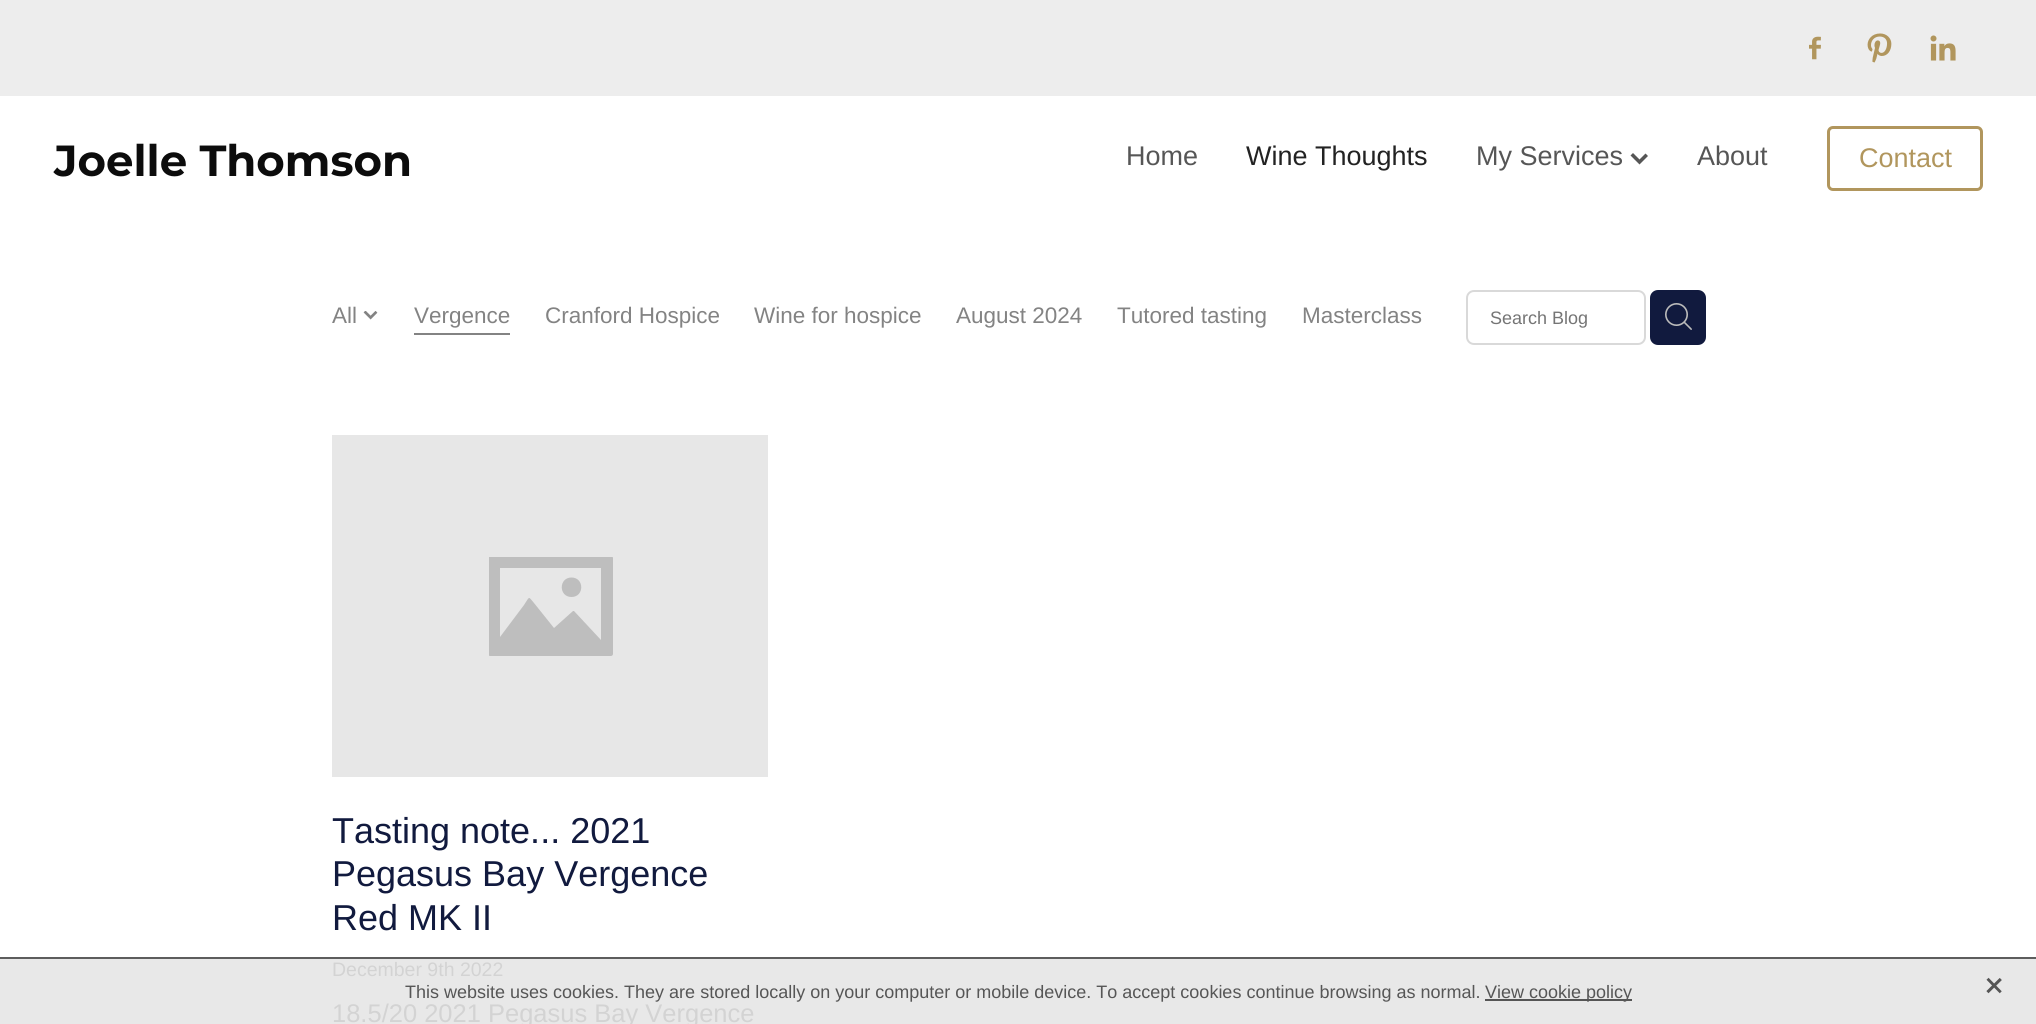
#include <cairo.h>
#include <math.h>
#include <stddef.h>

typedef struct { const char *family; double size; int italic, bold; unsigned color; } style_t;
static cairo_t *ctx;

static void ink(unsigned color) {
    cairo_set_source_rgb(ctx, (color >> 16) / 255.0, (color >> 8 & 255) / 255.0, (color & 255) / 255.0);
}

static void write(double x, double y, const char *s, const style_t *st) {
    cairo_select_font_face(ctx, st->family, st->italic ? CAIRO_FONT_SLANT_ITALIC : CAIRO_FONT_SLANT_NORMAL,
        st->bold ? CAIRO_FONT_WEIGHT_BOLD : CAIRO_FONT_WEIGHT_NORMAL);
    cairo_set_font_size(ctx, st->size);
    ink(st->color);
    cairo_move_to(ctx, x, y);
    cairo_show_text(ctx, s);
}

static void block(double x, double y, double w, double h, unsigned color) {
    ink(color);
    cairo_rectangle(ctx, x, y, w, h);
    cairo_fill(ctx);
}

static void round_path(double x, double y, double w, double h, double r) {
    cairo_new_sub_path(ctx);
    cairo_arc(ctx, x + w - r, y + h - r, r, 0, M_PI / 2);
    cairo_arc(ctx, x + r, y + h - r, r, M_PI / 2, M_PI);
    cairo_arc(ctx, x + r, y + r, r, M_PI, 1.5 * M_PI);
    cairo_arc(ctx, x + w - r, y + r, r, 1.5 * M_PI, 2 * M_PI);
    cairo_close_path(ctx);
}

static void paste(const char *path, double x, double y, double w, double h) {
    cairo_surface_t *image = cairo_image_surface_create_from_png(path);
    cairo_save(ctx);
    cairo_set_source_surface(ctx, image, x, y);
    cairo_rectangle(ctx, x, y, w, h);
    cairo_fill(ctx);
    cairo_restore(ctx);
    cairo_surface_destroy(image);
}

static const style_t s1 = {"Montserrat", 43.5, 0, 1, 0x0c0c0c};
static const style_t s2 = {"Liberation Sans", 27, 0, 0, 0x565656};
static const style_t s3 = {"Liberation Sans", 27, 0, 0, 0x222222};
static const style_t s4 = {"Liberation Sans", 27, 0, 0, 0xb1965d};
static const style_t s5 = {"Liberation Sans", 22.5, 0, 0, 0x838383};
static const style_t s6 = {"Liberation Sans", 18, 0, 0, 0x757575};
static const style_t s7 = {"Liberation Sans", 36, 0, 0, 0x111a3e};
static const style_t s8 = {"Liberation Sans", 19.5, 0, 0, 0xd3d3d3};
static const style_t s9 = {"Liberation Sans", 25.5, 0, 0, 0xd3d3d3};
static const style_t s10 = {"Liberation Sans", 18, 0, 0, 0x565656};

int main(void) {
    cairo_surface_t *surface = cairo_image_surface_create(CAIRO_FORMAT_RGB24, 2036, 1024);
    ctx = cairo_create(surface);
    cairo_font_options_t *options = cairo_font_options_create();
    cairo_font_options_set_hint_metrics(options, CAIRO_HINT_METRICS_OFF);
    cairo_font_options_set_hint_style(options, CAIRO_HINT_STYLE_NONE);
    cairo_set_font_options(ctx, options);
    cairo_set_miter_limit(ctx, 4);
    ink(0xffffff);
    cairo_paint(ctx);
    block(0, 959, 2036, 65, 0xe8e8e8);
    block(0, 0, 2036, 96, 0xededed);
    paste("pic1.png", 1809, 36, 12, 24);
    paste("pic2.png", 1867, 33, 25, 30);
    paste("pic3.png", 1930, 35, 26, 26);
    write(54, 176, "Joelle Thomson", &s1);
    write(1126, 165, "Home", &s2);
    write(1246, 165, "Wine Thoughts", &s3);
    write(1476, 165, "My Services", &s2);
    cairo_set_fill_rule(ctx, CAIRO_FILL_RULE_EVEN_ODD);
    cairo_new_path(ctx);
    cairo_move_to(ctx, 1648, 156);
    cairo_line_to(ctx, 1639.5, 164.5);
    cairo_line_to(ctx, 1630.5, 155.5);
    cairo_line_to(ctx, 1633, 153);
    cairo_line_to(ctx, 1639.5, 159.5);
    cairo_line_to(ctx, 1645.5, 153.5);
    cairo_close_path(ctx);
    cairo_fill(ctx);
    write(1697, 165, "About", &s2);
    round_path(1828.5, 127.5, 153, 62, 4.5);
    ink(0xb1965d);
    cairo_set_line_width(ctx, 3);
    cairo_stroke(ctx);
    write(1859, 167, "Contact", &s4);
    write(332, 323, "All", &s5);
    paste("pic4.png", 363, 311, 15, 9);
    block(414, 333, 96, 2, 0x838383);
    write(414, 323, "Vergence", &s5);
    write(545, 323, "Cranford Hospice", &s5);
    write(754, 323, "Wine for hospice", &s5);
    write(956, 323, "August 2024", &s5);
    write(1117, 323, "Tutored tasting", &s5);
    write(1302, 323, "Masterclass", &s5);
    round_path(1467, 291, 178, 53, 7);
    ink(0xd9d9d9);
    cairo_set_line_width(ctx, 2);
    cairo_stroke(ctx);
    write(1490, 324, "Search Blog", &s6);
    ink(0x111a3e);
    round_path(1650, 290, 56, 55, 8);
    cairo_fill(ctx);
    paste("pic5.png", 1665, 303, 27, 27);
    block(332, 435, 436, 342, 0xe7e7e7);
    cairo_save(ctx);
    cairo_set_fill_rule(ctx, CAIRO_FILL_RULE_WINDING);
    cairo_rectangle(ctx, 489, 557, 125, 99);
    cairo_clip(ctx);
    ink(0xbebebe);
    cairo_new_path(ctx);
    cairo_move_to(ctx, 611, 556);
    cairo_line_to(ctx, 490, 556);
    cairo_curve_to(ctx, 489, 556, 488, 557, 488, 558);
    cairo_line_to(ctx, 488, 654);
    cairo_curve_to(ctx, 488, 655, 489, 656, 490, 656);
    cairo_line_to(ctx, 611, 656);
    cairo_curve_to(ctx, 612, 656, 613, 655, 613, 654);
    cairo_line_to(ctx, 613, 558);
    cairo_curve_to(ctx, 613, 557, 612, 556, 611, 556);
    cairo_close_path(ctx);
    cairo_move_to(ctx, 601, 640);
    cairo_line_to(ctx, 574, 611);
    cairo_line_to(ctx, 573, 611);
    cairo_line_to(ctx, 554, 628);
    cairo_line_to(ctx, 534, 603);
    cairo_curve_to(ctx, 528, 596, 530, 596, 524, 605);
    cairo_line_to(ctx, 500, 637);
    cairo_line_to(ctx, 500, 568);
    cairo_line_to(ctx, 601, 568);
    cairo_close_path(ctx);
    cairo_fill(ctx);
    cairo_restore(ctx);
    ink(0xbebebe);
    cairo_set_fill_rule(ctx, CAIRO_FILL_RULE_WINDING);
    cairo_new_path(ctx);
    cairo_move_to(ctx, 571.5, 597);
    cairo_curve_to(ctx, 584.5, 597, 584.5, 577.5, 571.5, 577.5);
    cairo_curve_to(ctx, 558.5, 577.5, 558.5, 597, 571.5, 597);
    cairo_close_path(ctx);
    cairo_fill(ctx);
    write(332, 843, "Tasting note... 2021", &s7);
    write(332, 886, "Pegasus Bay Vergence", &s7);
    write(332, 930, "Red MK II", &s7);
    write(332, 976, "December 9th 2022", &s8);
    write(332, 1022, "18.5/20 2021 Pegasus Bay Vergence", &s9);
    block(0, 957, 2036, 2, 0x5d5d5d);
    write(405, 998, "This website uses cookies. They are stored locally on your computer or mobile device. To accept cookies continue browsing as normal.", &s10);
    block(1485, 999, 147, 2, 0x555555);
    write(1485, 998, "View cookie policy", &s10);
    paste("pic6.png", 1986, 977, 16, 17);
    cairo_surface_write_to_png(surface, "screenshot.png");
    cairo_font_options_destroy(options);
    cairo_destroy(ctx);
    cairo_surface_destroy(surface);
    return 0;
}
